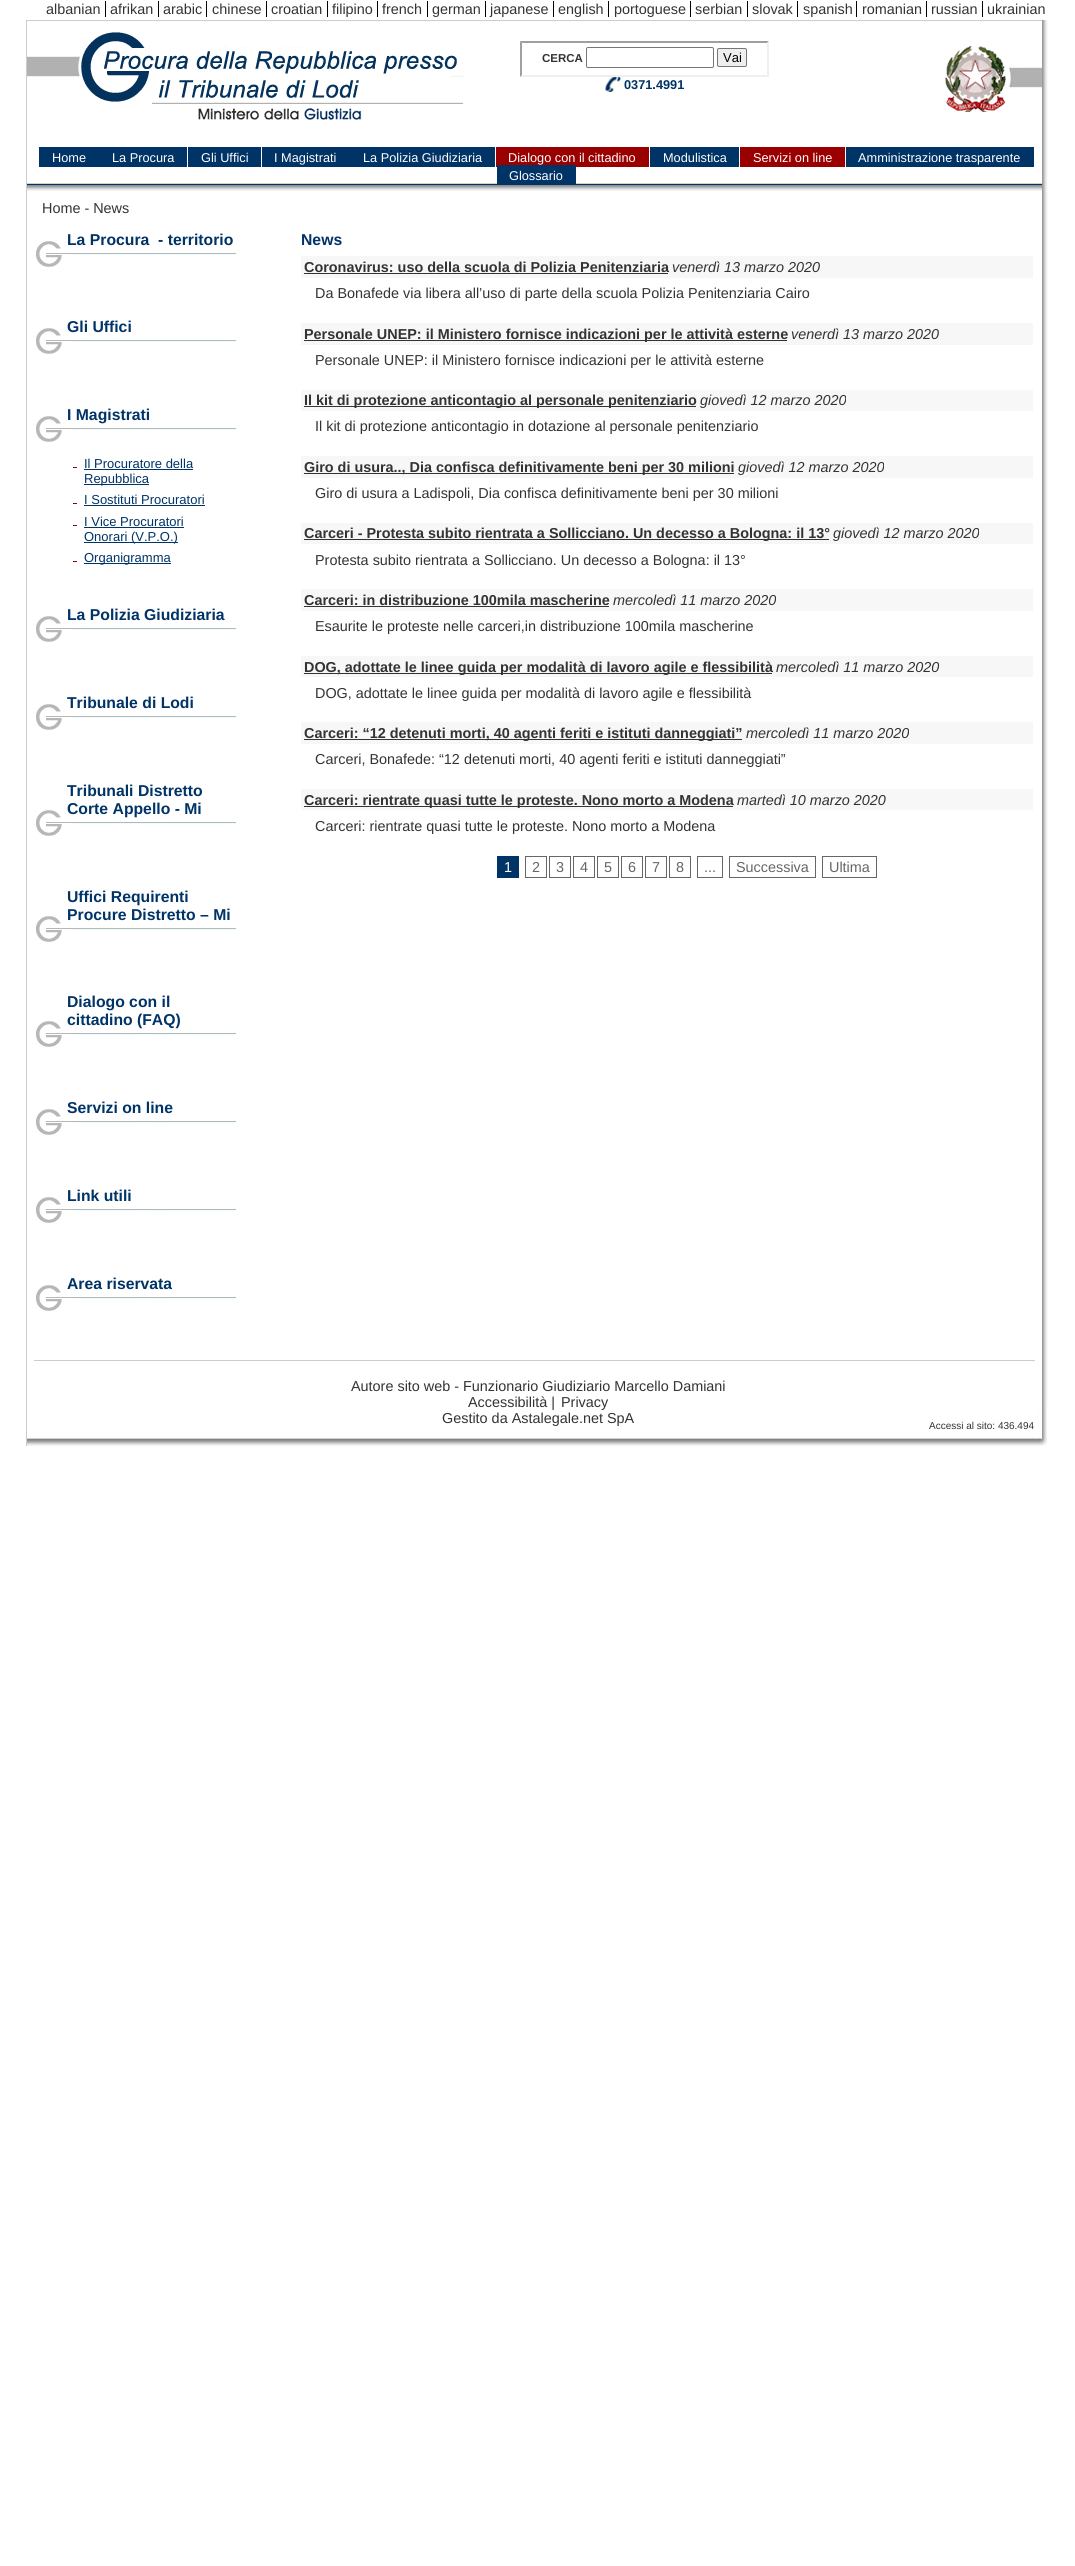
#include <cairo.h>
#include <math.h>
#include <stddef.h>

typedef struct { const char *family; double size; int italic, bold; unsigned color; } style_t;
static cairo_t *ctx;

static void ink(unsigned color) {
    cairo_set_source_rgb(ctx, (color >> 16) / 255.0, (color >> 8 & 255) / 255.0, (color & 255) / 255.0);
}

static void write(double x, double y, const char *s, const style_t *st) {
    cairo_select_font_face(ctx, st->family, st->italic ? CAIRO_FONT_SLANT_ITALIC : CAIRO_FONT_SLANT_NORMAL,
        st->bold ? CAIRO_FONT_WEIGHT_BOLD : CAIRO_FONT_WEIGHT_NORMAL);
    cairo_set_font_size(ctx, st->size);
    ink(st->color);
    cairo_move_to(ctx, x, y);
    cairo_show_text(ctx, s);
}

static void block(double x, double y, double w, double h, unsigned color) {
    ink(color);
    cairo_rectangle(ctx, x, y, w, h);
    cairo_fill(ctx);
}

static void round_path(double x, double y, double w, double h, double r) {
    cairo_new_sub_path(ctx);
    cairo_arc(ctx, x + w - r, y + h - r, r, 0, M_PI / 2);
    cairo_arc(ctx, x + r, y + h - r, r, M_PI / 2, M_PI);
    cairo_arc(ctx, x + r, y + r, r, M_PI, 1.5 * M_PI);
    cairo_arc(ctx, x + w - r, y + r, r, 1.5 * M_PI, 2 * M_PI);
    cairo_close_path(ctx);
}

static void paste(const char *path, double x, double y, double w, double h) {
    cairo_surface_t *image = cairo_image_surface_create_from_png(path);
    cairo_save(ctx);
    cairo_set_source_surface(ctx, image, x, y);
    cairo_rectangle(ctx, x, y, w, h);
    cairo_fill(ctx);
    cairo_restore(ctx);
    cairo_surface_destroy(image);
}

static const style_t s1 = {"Liberation Sans", 14.4, 0, 0, 0x333333};
static const style_t s2 = {"Liberation Sans", 11.5, 0, 1, 0x333333};
static const style_t s3 = {"Liberation Sans", 13, 0, 0, 0x000000};
static const style_t s4 = {"Liberation Sans", 12.75, 0, 1, 0x003366};
static const style_t s5 = {"Liberation Sans", 12.75, 0, 0, 0xffffff};
static const style_t s6 = {"Liberation Sans", 15.75, 0, 1, 0x003366};
static const style_t s7 = {"Liberation Sans", 13, 0, 0, 0x003366};
static const style_t s8 = {"Liberation Sans", 14.4, 0, 1, 0x333333};
static const style_t s9 = {"Liberation Sans", 14.4, 1, 0, 0x333333};
static const style_t s10 = {"Liberation Sans", 14.4, 0, 0, 0xffffff};
static const style_t s11 = {"Liberation Sans", 14.4, 0, 0, 0x666666};
static const style_t s12 = {"Liberation Sans", 10, 0, 0, 0x333333};

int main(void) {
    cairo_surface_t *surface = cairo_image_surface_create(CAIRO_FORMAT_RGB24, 1075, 2566);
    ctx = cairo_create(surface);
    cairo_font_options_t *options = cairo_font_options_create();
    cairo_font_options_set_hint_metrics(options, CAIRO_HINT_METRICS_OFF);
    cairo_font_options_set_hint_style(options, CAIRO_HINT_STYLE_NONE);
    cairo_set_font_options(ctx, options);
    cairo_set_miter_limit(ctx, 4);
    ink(0xffffff);
    cairo_paint(ctx);
    paste("pic1.png", 1042, 20, 6, 1386);
    block(26, 20, 1, 1426, 0xcccccc);
    block(27, 20, 1015, 1, 0xcccccc);
    block(105, 1, 1, 16, 0x000000);
    write(46, 14, "albanian", &s1);
    block(158, 1, 1, 16, 0x000000);
    write(110, 14, "afrikan", &s1);
    block(206, 1, 1, 16, 0x000000);
    write(163, 14, "arabic", &s1);
    block(266, 1, 1, 16, 0x000000);
    write(212, 14, "chinese", &s1);
    block(327, 1, 1, 16, 0x000000);
    write(271, 14, "croatian", &s1);
    block(377, 1, 1, 16, 0x000000);
    write(332, 14, "filipino", &s1);
    block(427, 1, 1, 16, 0x000000);
    write(382, 14, "french", &s1);
    block(485, 1, 1, 16, 0x000000);
    write(432, 14, "german", &s1);
    block(553, 1, 1, 16, 0x000000);
    write(490, 14, "japanese", &s1);
    block(608, 1, 1, 16, 0x000000);
    write(558, 14, "english", &s1);
    block(690, 1, 1, 16, 0x000000);
    write(614, 14, "portoguese", &s1);
    block(747, 1, 1, 16, 0x000000);
    write(695, 14, "serbian", &s1);
    block(797, 1, 1, 16, 0x000000);
    write(752, 14, "slovak", &s1);
    block(856, 1, 1, 16, 0x000000);
    write(803, 14, "spanish", &s1);
    block(926, 1, 1, 16, 0x000000);
    write(862, 14, "romanian", &s1);
    block(982, 1, 1, 16, 0x000000);
    write(931, 14, "russian", &s1);
    write(987, 14, "ukrainian", &s1);
    paste("pic2.png", 27, 30, 437, 90);
    ink(0x9f9f9f);
    cairo_new_path(ctx);
    cairo_move_to(ctx, 520, 41);
    cairo_line_to(ctx, 769, 41);
    cairo_line_to(ctx, 767, 43);
    cairo_line_to(ctx, 522, 43);
    cairo_close_path(ctx);
    cairo_fill(ctx);
    ink(0xefefef);
    cairo_new_path(ctx);
    cairo_move_to(ctx, 769, 41);
    cairo_line_to(ctx, 769, 77);
    cairo_line_to(ctx, 767, 75);
    cairo_line_to(ctx, 767, 43);
    cairo_close_path(ctx);
    cairo_fill(ctx);
    cairo_new_path(ctx);
    cairo_move_to(ctx, 769, 77);
    cairo_line_to(ctx, 520, 77);
    cairo_line_to(ctx, 522, 75);
    cairo_line_to(ctx, 767, 75);
    cairo_close_path(ctx);
    cairo_fill(ctx);
    ink(0x9f9f9f);
    cairo_new_path(ctx);
    cairo_move_to(ctx, 520, 77);
    cairo_line_to(ctx, 520, 41);
    cairo_line_to(ctx, 522, 43);
    cairo_line_to(ctx, 522, 75);
    cairo_close_path(ctx);
    cairo_fill(ctx);
    write(542, 62, "CERCA", &s2);
    round_path(586.5, 47.5, 127, 20, 1.5);
    ink(0x767676);
    cairo_set_line_width(ctx, 1);
    cairo_stroke(ctx);
    ink(0xefefef);
    round_path(717.5, 48.5, 29, 18, 1.5);
    cairo_fill_preserve(ctx);
    ink(0x767676);
    cairo_stroke(ctx);
    write(723, 62, "Vai", &s3);
    paste("pic3.png", 605, 77, 16, 15);
    write(624, 89, "0371.4991", &s4);
    paste("pic4.png", 945, 45, 97, 67);
    paste("pic5.png", 27, 183, 1015, 8);
    block(39, 147, 148, 20, 0x003366);
    write(52, 162, "Home", &s5);
    write(112, 162, "La Procura", &s5);
    block(188, 147, 73, 20, 0x003366);
    write(201, 162, "Gli Uffici", &s5);
    block(262, 147, 233, 20, 0x003366);
    write(274, 162, "I Magistrati", &s5);
    write(363, 162, "La Polizia Giudiziaria", &s5);
    block(496, 147, 153, 20, 0x9a0000);
    write(508, 162, "Dialogo con il cittadino", &s5);
    block(650, 147, 89, 20, 0x003366);
    write(663, 162, "Modulistica", &s5);
    block(740, 147, 105, 20, 0x9a0000);
    write(753, 162, "Servizi on line", &s5);
    block(846, 147, 188, 20, 0x003366);
    write(858, 162, "Amministrazione trasparente", &s5);
    block(497, 165, 79, 19, 0x003366);
    write(509, 180, "Glossario", &s5);
    write(42, 213, "Home - News", &s1);
    paste("pic6.png", 36, 241, 200, 26);
    write(67, 245, "La Procura  - territorio", &s6);
    paste("pic6.png", 36, 328, 200, 26);
    write(67, 332, "Gli Uffici", &s6);
    paste("pic6.png", 36, 416, 200, 26);
    write(67, 420, "I Magistrati", &s6);
    paste("pic7.png", 73, 467, 4, 1);
    write(84, 468, "Il Procuratore della", &s7);
    block(84, 469, 109, 1, 0x003366);
    block(84, 484, 65, 1, 0x003366);
    write(84, 483, "Repubblica", &s7);
    paste("pic7.png", 73, 503, 4, 1);
    write(84, 504, "I Sostituti Procuratori", &s7);
    block(84, 505, 121, 1, 0x003366);
    paste("pic7.png", 73, 525, 4, 1);
    write(84, 526, "I Vice Procuratori", &s7);
    block(84, 527, 100, 1, 0x003366);
    block(84, 542, 94, 1, 0x003366);
    write(84, 541, "Onorari (V.P.O.)", &s7);
    paste("pic7.png", 73, 561, 4, 1);
    block(84, 563, 87, 1, 0x003366);
    write(84, 562, "Organigramma", &s7);
    paste("pic6.png", 36, 616, 200, 26);
    write(67, 620, "La Polizia Giudiziaria", &s6);
    paste("pic6.png", 36, 704, 200, 26);
    write(67, 708, "Tribunale di Lodi", &s6);
    paste("pic6.png", 36, 810, 200, 26);
    write(67, 796, "Tribunali Distretto", &s6);
    write(67, 814, "Corte Appello - Mi", &s6);
    paste("pic6.png", 36, 916, 200, 26);
    write(67, 902, "Uffici Requirenti", &s6);
    write(67, 920, "Procure Distretto – Mi", &s6);
    paste("pic6.png", 36, 1021, 200, 26);
    write(67, 1007, "Dialogo con il", &s6);
    write(67, 1025, "cittadino (FAQ)", &s6);
    paste("pic6.png", 36, 1109, 200, 26);
    write(67, 1113, "Servizi on line", &s6);
    paste("pic6.png", 36, 1197, 200, 26);
    write(67, 1201, "Link utili", &s6);
    paste("pic6.png", 36, 1285, 200, 26);
    write(67, 1289, "Area riservata", &s6);
    write(301, 245, "News", &s6);
    block(301, 256, 732, 22, 0xf7f7f7);
    write(304, 272, "Coronavirus: uso della scuola di Polizia Penitenziaria", &s8);
    block(304, 273, 364, 1, 0x333333);
    write(672, 272, "venerdì 13 marzo 2020", &s9);
    write(315, 298, "Da Bonafede via libera all’uso di parte della scuola Polizia Penitenziaria Cairo", &s1);
    block(301, 323, 732, 22, 0xf7f7f7);
    block(304, 340, 483, 1, 0x333333);
    write(304, 339, "Personale UNEP: il Ministero fornisce indicazioni per le attività esterne", &s8);
    write(791, 339, "venerdì 13 marzo 2020", &s9);
    write(315, 365, "Personale UNEP: il Ministero fornisce indicazioni per le attività esterne", &s1);
    block(301, 390, 732, 21, 0xf7f7f7);
    block(304, 406, 392, 1, 0x333333);
    write(304, 405, "Il kit di protezione anticontagio al personale penitenziario", &s8);
    write(700, 405, "giovedì 12 marzo 2020", &s9);
    write(315, 431, "Il kit di protezione anticontagio in dotazione al personale penitenziario", &s1);
    block(301, 456, 732, 22, 0xf7f7f7);
    block(304, 473, 430, 1, 0x333333);
    write(304, 472, "Giro di usura.., Dia confisca definitivamente beni per 30 milioni", &s8);
    write(738, 472, "giovedì 12 marzo 2020", &s9);
    write(315, 498, "Giro di usura a Ladispoli, Dia confisca definitivamente beni per 30 milioni", &s1);
    block(301, 523, 732, 21, 0xf7f7f7);
    block(304, 539, 525, 1, 0x333333);
    write(304, 538, "Carceri - Protesta subito rientrata a Sollicciano. Un decesso a Bologna: il 13°", &s8);
    write(833, 538, "giovedì 12 marzo 2020", &s9);
    write(315, 565, "Protesta subito rientrata a Sollicciano. Un decesso a Bologna: il 13°", &s1);
    block(301, 589, 732, 22, 0xf7f7f7);
    write(304, 605, "Carceri: in distribuzione 100mila mascherine", &s8);
    block(304, 606, 305, 1, 0x333333);
    write(613, 605, "mercoledì 11 marzo 2020", &s9);
    write(315, 631, "Esaurite le proteste nelle carceri,in distribuzione 100mila mascherine", &s1);
    block(301, 656, 732, 21, 0xf7f7f7);
    block(304, 673, 468, 1, 0x333333);
    write(304, 672, "DOG, adottate le linee guida per modalità di lavoro agile e flessibilità", &s8);
    write(776, 672, "mercoledì 11 marzo 2020", &s9);
    write(315, 698, "DOG, adottate le linee guida per modalità di lavoro agile e flessibilità", &s1);
    block(301, 722, 732, 22, 0xf7f7f7);
    block(304, 739, 438, 1, 0x333333);
    write(304, 738, "Carceri: “12 detenuti morti, 40 agenti feriti e istituti danneggiati”", &s8);
    write(746, 738, "mercoledì 11 marzo 2020", &s9);
    write(315, 764, "Carceri, Bonafede: “12 detenuti morti, 40 agenti feriti e istituti danneggiati”", &s1);
    block(301, 789, 732, 21, 0xf7f7f7);
    block(304, 806, 429, 1, 0x333333);
    write(304, 805, "Carceri: rientrate quasi tutte le proteste. Nono morto a Modena", &s8);
    write(737, 805, "martedì 10 marzo 2020", &s9);
    write(315, 831, "Carceri: rientrate quasi tutte le proteste. Nono morto a Modena", &s1);
    block(497, 856, 22, 22, 0x003366);
    write(504, 872, "1", &s10);
    cairo_rectangle(ctx, 525.5, 856.5, 21, 21);
    ink(0x666666);
    cairo_stroke(ctx);
    write(532, 872, "2", &s11);
    cairo_rectangle(ctx, 549.5, 856.5, 21, 21);
    cairo_stroke(ctx);
    write(556, 872, "3", &s11);
    cairo_rectangle(ctx, 573.5, 856.5, 21, 21);
    cairo_stroke(ctx);
    write(580, 872, "4", &s11);
    cairo_rectangle(ctx, 597.5, 856.5, 21, 21);
    cairo_stroke(ctx);
    write(604, 872, "5", &s11);
    cairo_rectangle(ctx, 621.5, 856.5, 21, 21);
    cairo_stroke(ctx);
    write(628, 872, "6", &s11);
    cairo_rectangle(ctx, 645.5, 856.5, 21, 21);
    cairo_stroke(ctx);
    write(652, 872, "7", &s11);
    cairo_rectangle(ctx, 669.5, 856.5, 21, 21);
    cairo_stroke(ctx);
    write(676, 872, "8", &s11);
    cairo_rectangle(ctx, 697.5, 856.5, 25, 21);
    cairo_stroke(ctx);
    write(704, 872, "...", &s11);
    cairo_rectangle(ctx, 729.5, 856.5, 86, 21);
    cairo_stroke(ctx);
    write(736, 872, "Successiva", &s11);
    cairo_rectangle(ctx, 822.5, 856.5, 54, 21);
    cairo_stroke(ctx);
    write(829, 872, "Ultima", &s11);
    block(34, 1360, 1001, 1, 0xcccccc);
    paste("pic8.png", 27, 1406, 1021, 40);
    write(351, 1391, "Autore sito web - Funzionario Giudiziario Marcello Damiani", &s1);
    write(468, 1407, "Accessibilità |", &s1);
    write(561, 1407, "Privacy", &s1);
    write(442, 1423, "Gestito da Astalegale.net SpA", &s1);
    write(929, 1429, "Accessi al sito: 436.494", &s12);
    cairo_surface_write_to_png(surface, "screenshot.png");
    cairo_font_options_destroy(options);
    cairo_destroy(ctx);
    cairo_surface_destroy(surface);
    return 0;
}
